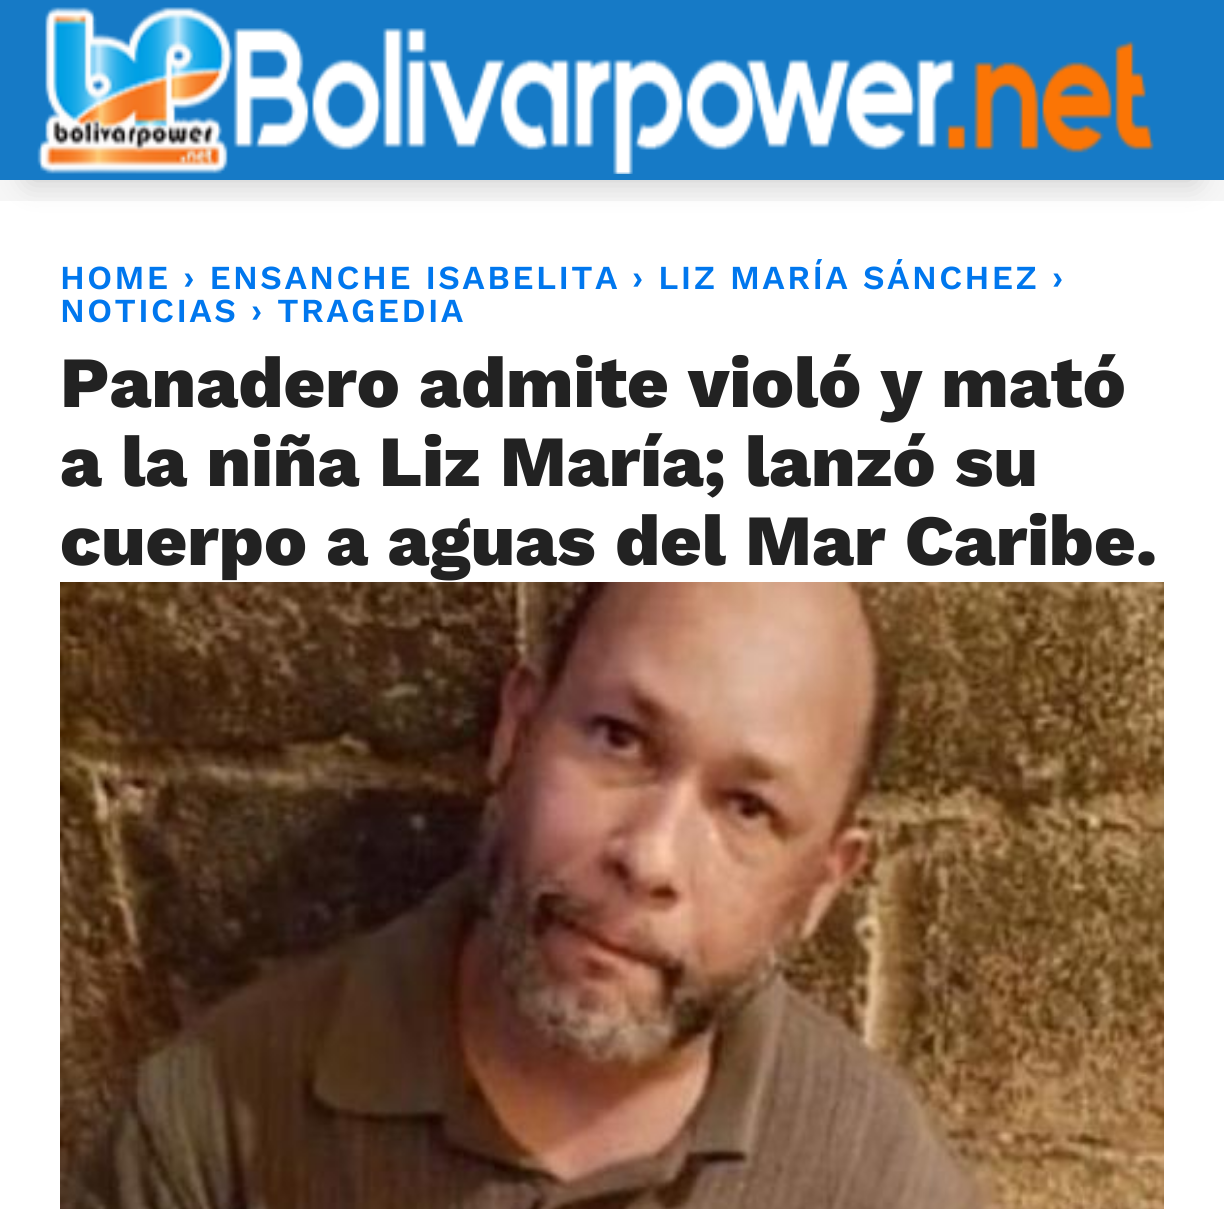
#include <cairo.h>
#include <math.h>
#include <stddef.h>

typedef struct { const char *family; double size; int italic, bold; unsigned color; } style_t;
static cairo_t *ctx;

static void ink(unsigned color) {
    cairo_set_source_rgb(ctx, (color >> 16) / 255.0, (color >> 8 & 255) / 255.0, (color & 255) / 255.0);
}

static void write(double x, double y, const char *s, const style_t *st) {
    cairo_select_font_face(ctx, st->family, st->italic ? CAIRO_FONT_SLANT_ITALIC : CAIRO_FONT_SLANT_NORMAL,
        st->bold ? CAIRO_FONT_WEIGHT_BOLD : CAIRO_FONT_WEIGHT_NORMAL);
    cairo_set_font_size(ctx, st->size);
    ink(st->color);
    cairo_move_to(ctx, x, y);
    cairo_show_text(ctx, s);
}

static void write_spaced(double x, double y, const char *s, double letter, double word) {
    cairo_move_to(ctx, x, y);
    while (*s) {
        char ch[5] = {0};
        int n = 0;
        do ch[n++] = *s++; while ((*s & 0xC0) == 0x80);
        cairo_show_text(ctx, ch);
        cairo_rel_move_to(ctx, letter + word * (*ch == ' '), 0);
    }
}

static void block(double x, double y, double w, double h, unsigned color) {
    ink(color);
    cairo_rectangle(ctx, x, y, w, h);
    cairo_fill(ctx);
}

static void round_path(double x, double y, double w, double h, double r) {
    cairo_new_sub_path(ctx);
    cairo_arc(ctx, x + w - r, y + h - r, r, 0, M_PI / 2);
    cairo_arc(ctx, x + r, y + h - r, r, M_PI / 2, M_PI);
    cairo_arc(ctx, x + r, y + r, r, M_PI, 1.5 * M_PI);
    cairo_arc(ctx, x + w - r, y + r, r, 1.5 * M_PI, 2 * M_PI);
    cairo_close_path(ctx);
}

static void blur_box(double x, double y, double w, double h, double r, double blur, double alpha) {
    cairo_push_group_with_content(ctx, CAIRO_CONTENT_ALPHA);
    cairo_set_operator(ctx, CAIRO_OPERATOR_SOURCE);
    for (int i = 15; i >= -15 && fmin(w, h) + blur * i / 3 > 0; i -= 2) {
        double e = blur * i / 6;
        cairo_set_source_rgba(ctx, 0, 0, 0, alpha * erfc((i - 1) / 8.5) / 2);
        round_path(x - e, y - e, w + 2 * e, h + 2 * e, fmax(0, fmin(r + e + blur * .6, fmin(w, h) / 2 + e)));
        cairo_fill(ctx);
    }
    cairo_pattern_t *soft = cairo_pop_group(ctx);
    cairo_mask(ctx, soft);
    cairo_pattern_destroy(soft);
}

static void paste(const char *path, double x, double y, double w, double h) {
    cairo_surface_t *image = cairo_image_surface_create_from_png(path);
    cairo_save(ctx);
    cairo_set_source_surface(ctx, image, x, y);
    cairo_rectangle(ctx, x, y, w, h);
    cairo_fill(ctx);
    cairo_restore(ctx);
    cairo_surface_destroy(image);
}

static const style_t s1 = {"Work Sans ExtraBold", 72, 0, 0, 0x222222};

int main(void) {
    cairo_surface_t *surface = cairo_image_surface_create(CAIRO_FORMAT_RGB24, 1224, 1209);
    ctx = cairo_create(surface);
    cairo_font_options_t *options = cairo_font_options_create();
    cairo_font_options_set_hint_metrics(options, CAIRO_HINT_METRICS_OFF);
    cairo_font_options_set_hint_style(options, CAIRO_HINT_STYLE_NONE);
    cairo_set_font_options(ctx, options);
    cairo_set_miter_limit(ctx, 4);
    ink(0xffffff);
    cairo_paint(ctx);
    block(0, 180, 1224, 21, 0xf6f6f6);
    ink(0x000000);
    blur_box(30, 60, 1164, 120, 0, 15, 0.2);
    block(0, 0, 1224, 180, 0x167ac6);
    paste("pic1.png", 37, 7, 1117, 167);
    cairo_select_font_face(ctx, "Work Sans SemiBold", CAIRO_FONT_SLANT_NORMAL, CAIRO_FONT_WEIGHT_NORMAL);
    cairo_set_font_size(ctx, 33.6);
    ink(0x0077ee);
    write_spaced(60, 289, "HOME › ENSANCHE ISABELITA", 2.4, 0);
    write_spaced(632, 289, "› LIZ MARÍA SÁNCHEZ", 2.4, 0);
    write_spaced(1052, 289, "›", 2.4, 0);
    write_spaced(60, 322, "NOTICIAS › TRAGEDIA", 2.4, 0);
    write(60, 407, "Panadero admite violó y mató", &s1);
    write(60, 486, "a la niña Liz María; lanzó su", &s1);
    write(60, 565, "cuerpo a aguas del Mar Caribe.", &s1);
    paste("pic2.png", 60, 582, 1104, 627);
    cairo_surface_write_to_png(surface, "screenshot.png");
    cairo_font_options_destroy(options);
    cairo_destroy(ctx);
    cairo_surface_destroy(surface);
    return 0;
}
